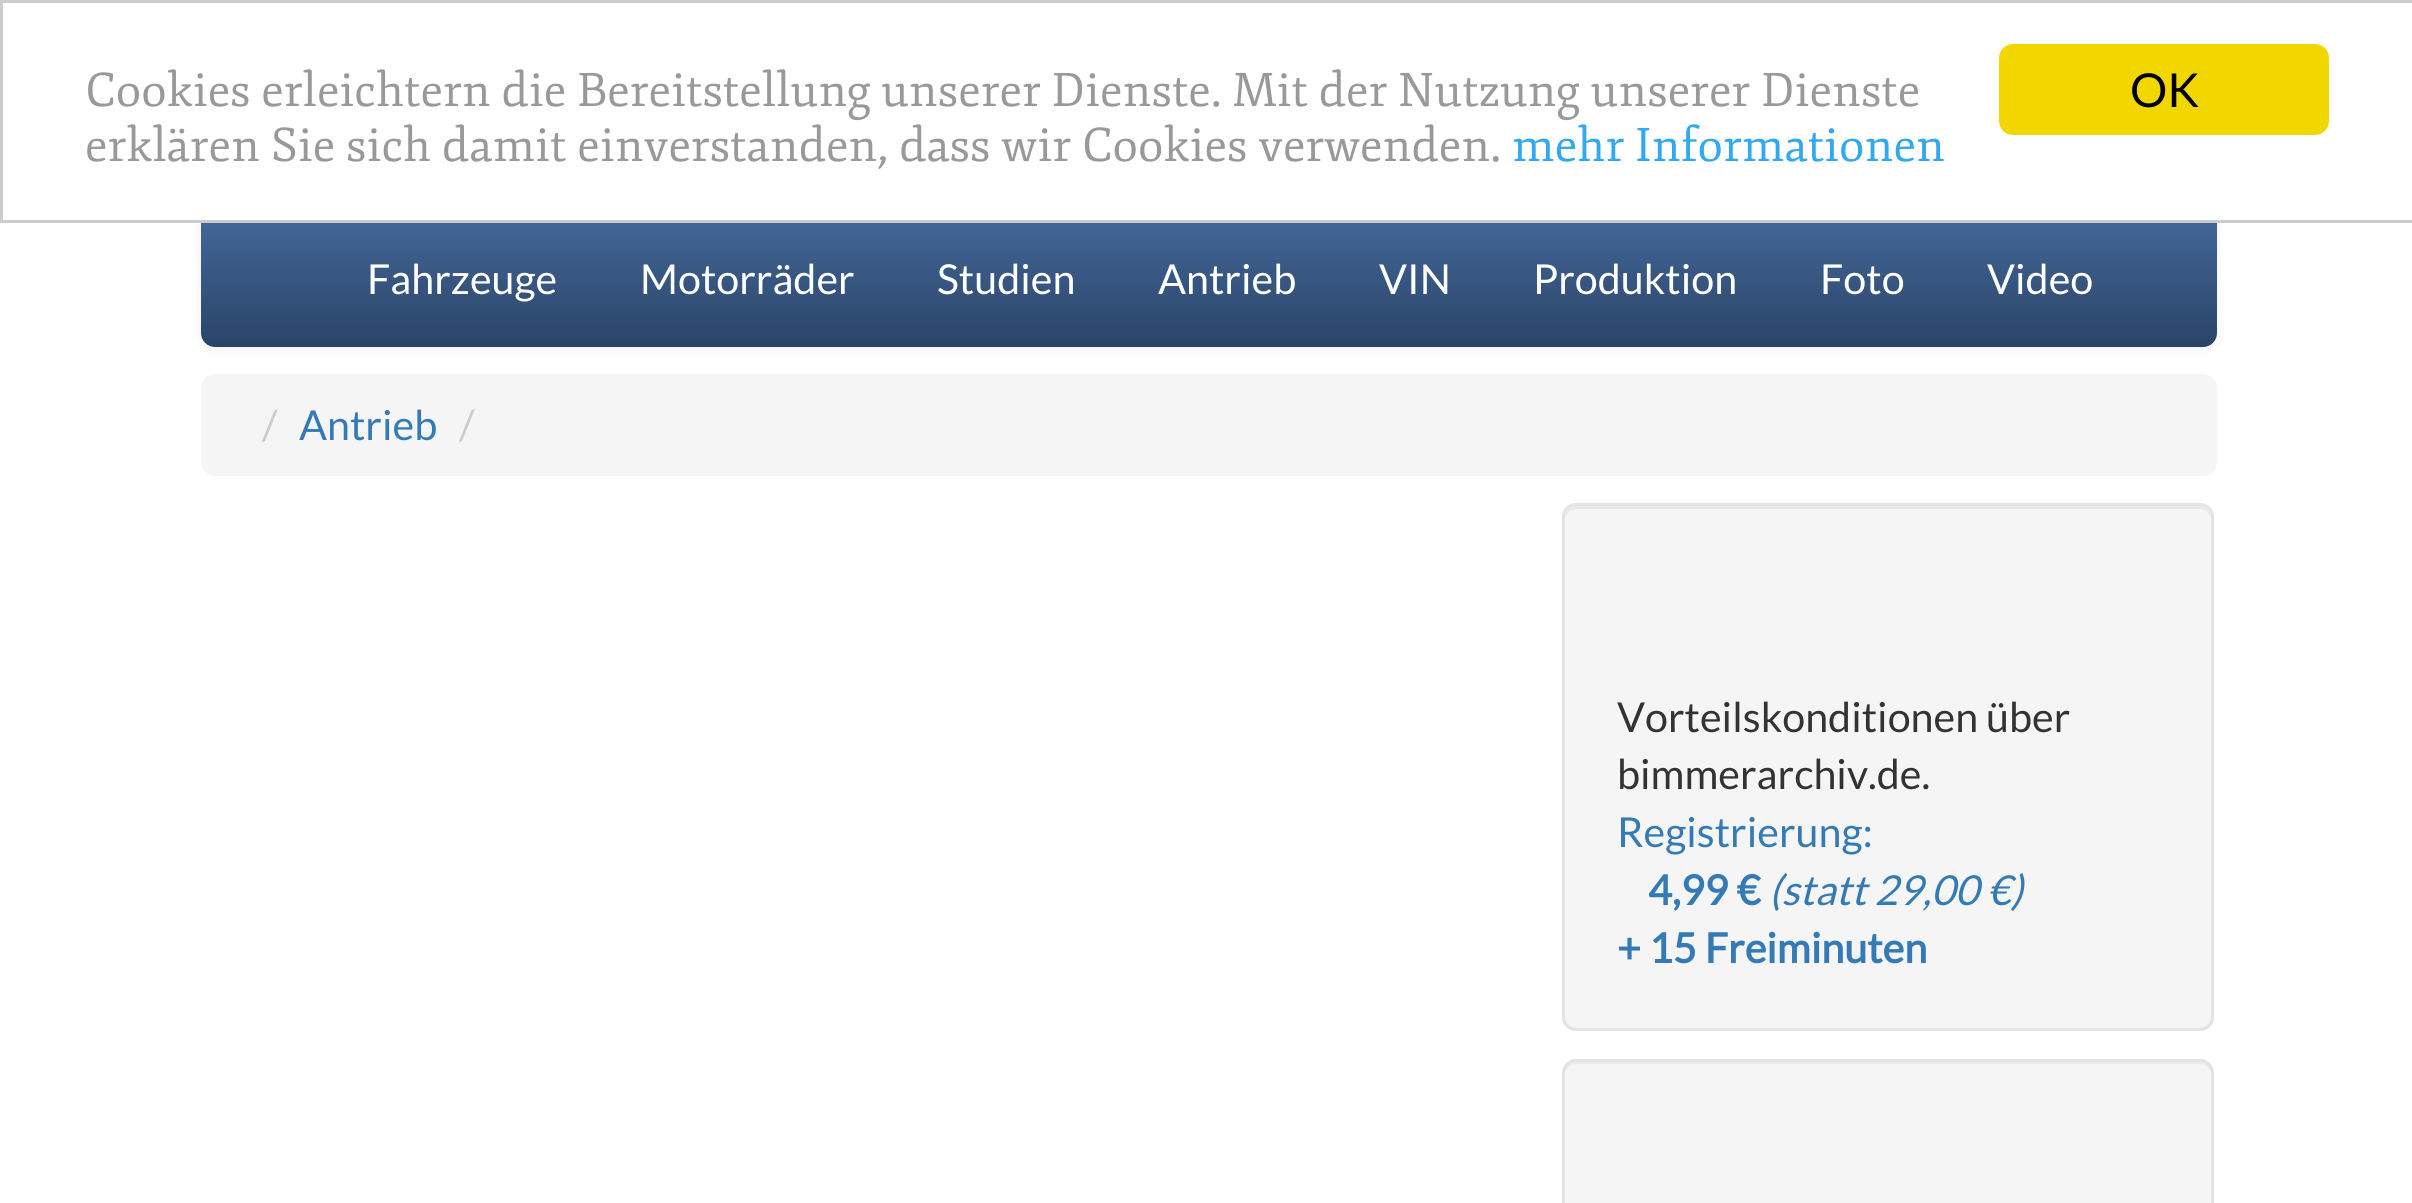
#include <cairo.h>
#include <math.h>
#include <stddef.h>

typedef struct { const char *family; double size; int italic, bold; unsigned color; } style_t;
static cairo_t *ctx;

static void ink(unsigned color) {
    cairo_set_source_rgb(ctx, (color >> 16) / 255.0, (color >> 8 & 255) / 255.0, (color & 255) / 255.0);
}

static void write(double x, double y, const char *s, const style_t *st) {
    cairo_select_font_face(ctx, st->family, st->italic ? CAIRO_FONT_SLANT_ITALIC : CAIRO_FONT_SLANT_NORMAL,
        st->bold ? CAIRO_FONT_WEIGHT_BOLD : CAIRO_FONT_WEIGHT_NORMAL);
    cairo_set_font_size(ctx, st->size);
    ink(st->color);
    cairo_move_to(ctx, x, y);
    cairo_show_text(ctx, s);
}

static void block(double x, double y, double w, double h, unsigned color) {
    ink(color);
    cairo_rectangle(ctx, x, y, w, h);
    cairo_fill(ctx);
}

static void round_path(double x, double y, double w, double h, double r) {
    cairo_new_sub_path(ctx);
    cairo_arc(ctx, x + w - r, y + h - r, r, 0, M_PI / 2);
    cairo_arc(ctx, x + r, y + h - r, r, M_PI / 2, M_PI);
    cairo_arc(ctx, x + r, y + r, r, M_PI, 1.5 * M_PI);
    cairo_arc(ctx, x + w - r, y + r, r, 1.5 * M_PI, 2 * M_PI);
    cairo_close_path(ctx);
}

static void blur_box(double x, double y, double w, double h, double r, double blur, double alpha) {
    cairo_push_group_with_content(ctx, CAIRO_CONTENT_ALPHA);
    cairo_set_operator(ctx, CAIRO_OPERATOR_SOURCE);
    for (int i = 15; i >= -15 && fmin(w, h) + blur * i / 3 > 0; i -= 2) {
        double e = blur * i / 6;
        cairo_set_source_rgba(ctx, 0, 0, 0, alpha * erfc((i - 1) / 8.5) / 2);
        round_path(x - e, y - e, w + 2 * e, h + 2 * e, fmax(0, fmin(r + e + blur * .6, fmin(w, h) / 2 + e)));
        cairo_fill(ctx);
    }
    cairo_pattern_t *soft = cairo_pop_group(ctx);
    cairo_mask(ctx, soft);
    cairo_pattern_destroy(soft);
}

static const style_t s1 = {"Fjord", 46.75, 0, 0, 0x999999};
static const style_t s2 = {"Fjord", 46.75, 0, 0, 0x31a8f0};
static const style_t s3 = {"Lato", 46.75, 0, 0, 0x000000};
static const style_t s4 = {"Lato", 41.25, 0, 0, 0xffffff};
static const style_t s5 = {"Lato", 41.25, 0, 0, 0xcccccc};
static const style_t s6 = {"Lato", 41.25, 0, 0, 0x337ab7};
static const style_t s7 = {"Lato", 41.25, 0, 0, 0x333333};
static const style_t s8 = {"Lato", 41.25, 0, 1, 0x337ab7};
static const style_t s9 = {"Lato", 41.25, 1, 0, 0x337ab7};

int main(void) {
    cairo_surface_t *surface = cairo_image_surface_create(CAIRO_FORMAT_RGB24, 2412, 1203);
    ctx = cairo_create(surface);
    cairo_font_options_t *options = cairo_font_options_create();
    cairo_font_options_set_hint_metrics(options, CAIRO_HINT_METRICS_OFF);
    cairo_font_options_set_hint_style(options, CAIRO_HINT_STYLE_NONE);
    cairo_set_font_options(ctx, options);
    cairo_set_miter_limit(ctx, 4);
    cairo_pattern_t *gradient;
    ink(0xffffff);
    cairo_paint(ctx);
    ink(0x000000);
    blur_box(201, 212, 2016, 137, 14, 5.5, 0.07);
    gradient = cairo_pattern_create_linear(1209, 209, 1209, 347);
    cairo_pattern_add_color_stop_rgba(gradient, 0, 0.267, 0.412, 0.612, 1);
    cairo_pattern_add_color_stop_rgba(gradient, 1, 0.165, 0.267, 0.404, 1);
    cairo_set_source(ctx, gradient);
    cairo_pattern_destroy(gradient);
    round_path(201, 209, 2016, 138, 14);
    cairo_fill(ctx);
    block(197, 206, 2024, 14, 0xffffff);
    cairo_rectangle(ctx, 1.5, 1.5, 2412, 220);
    ink(0xcccccc);
    cairo_set_line_width(ctx, 3);
    cairo_stroke(ctx);
    write(85, 106, "Cookies erleichtern die Bereitstellung unserer Dienste. Mit der Nutzung unserer Dienste", &s1);
    write(85, 161, "erklären Sie sich damit einverstanden, dass wir Cookies verwenden.", &s1);
    write(1512, 161, "mehr Informationen", &s2);
    ink(0xf1d600);
    round_path(1999, 44, 330, 91, 14);
    cairo_fill(ctx);
    write(2130, 107, "OK", &s3);
    write(367, 294, "Fahrzeuge", &s4);
    write(640, 294, "Motorräder", &s4);
    write(937, 294, "Studien", &s4);
    write(1158, 294, "Antrieb", &s4);
    write(1379, 294, "VIN", &s4);
    write(1533, 294, "Produktion", &s4);
    write(1820, 294, "Foto", &s4);
    write(1987, 294, "Video", &s4);
    ink(0xf5f5f5);
    round_path(201, 374, 2016, 102, 14);
    cairo_fill(ctx);
    write(262, 440, "/", &s5);
    write(299, 440, "Antrieb", &s6);
    write(459, 440, "/", &s5);
    ink(0xf5f5f5);
    round_path(1562, 503, 652, 528, 14);
    cairo_fill(ctx);
    ink(0xe9e9e9);
    cairo_new_path(ctx);
    cairo_move_to(ctx, 1576, 509);
    cairo_line_to(ctx, 2200, 509);
    cairo_curve_to(ctx, 2206, 509, 2211, 514, 2211, 520);
    cairo_curve_to(ctx, 2211, 513, 2208, 506, 2200, 506);
    cairo_line_to(ctx, 1576, 506);
    cairo_curve_to(ctx, 1568, 506, 1565, 513, 1565, 520);
    cairo_curve_to(ctx, 1565, 514, 1570, 509, 1576, 509);
    cairo_close_path(ctx);
    cairo_fill(ctx);
    round_path(1563.5, 504.5, 649, 525, 12.5);
    ink(0xe3e3e3);
    cairo_stroke(ctx);
    write(1617, 732, "Vorteilskonditionen über", &s7);
    write(1617, 789, "bimmerarchiv.de.", &s7);
    write(1617, 847, "Registrierung:", &s6);
    write(1648, 905, "4,99 €", &s8);
    write(1769, 905, "(statt 29,00 €)", &s9);
    write(1617, 963, "+ 15 Freiminuten", &s8);
    ink(0xf5f5f5);
    round_path(1562, 1059, 652, 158, 14);
    cairo_fill(ctx);
    ink(0xe9e9e9);
    cairo_new_path(ctx);
    cairo_move_to(ctx, 1576, 1064);
    cairo_line_to(ctx, 2200, 1064);
    cairo_curve_to(ctx, 2206, 1064, 2211, 1069, 2211, 1075);
    cairo_line_to(ctx, 2211, 1073);
    cairo_curve_to(ctx, 2211, 1067, 2206, 1062, 2200, 1062);
    cairo_line_to(ctx, 1576, 1062);
    cairo_curve_to(ctx, 1570, 1062, 1565, 1067, 1565, 1073);
    cairo_line_to(ctx, 1565, 1075);
    cairo_curve_to(ctx, 1565, 1069, 1570, 1064, 1576, 1064);
    cairo_close_path(ctx);
    cairo_fill(ctx);
    round_path(1563.5, 1060.5, 649, 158, 12.5);
    ink(0xe3e3e3);
    cairo_stroke(ctx);
    cairo_surface_write_to_png(surface, "screenshot.png");
    cairo_font_options_destroy(options);
    cairo_destroy(ctx);
    cairo_surface_destroy(surface);
    return 0;
}
